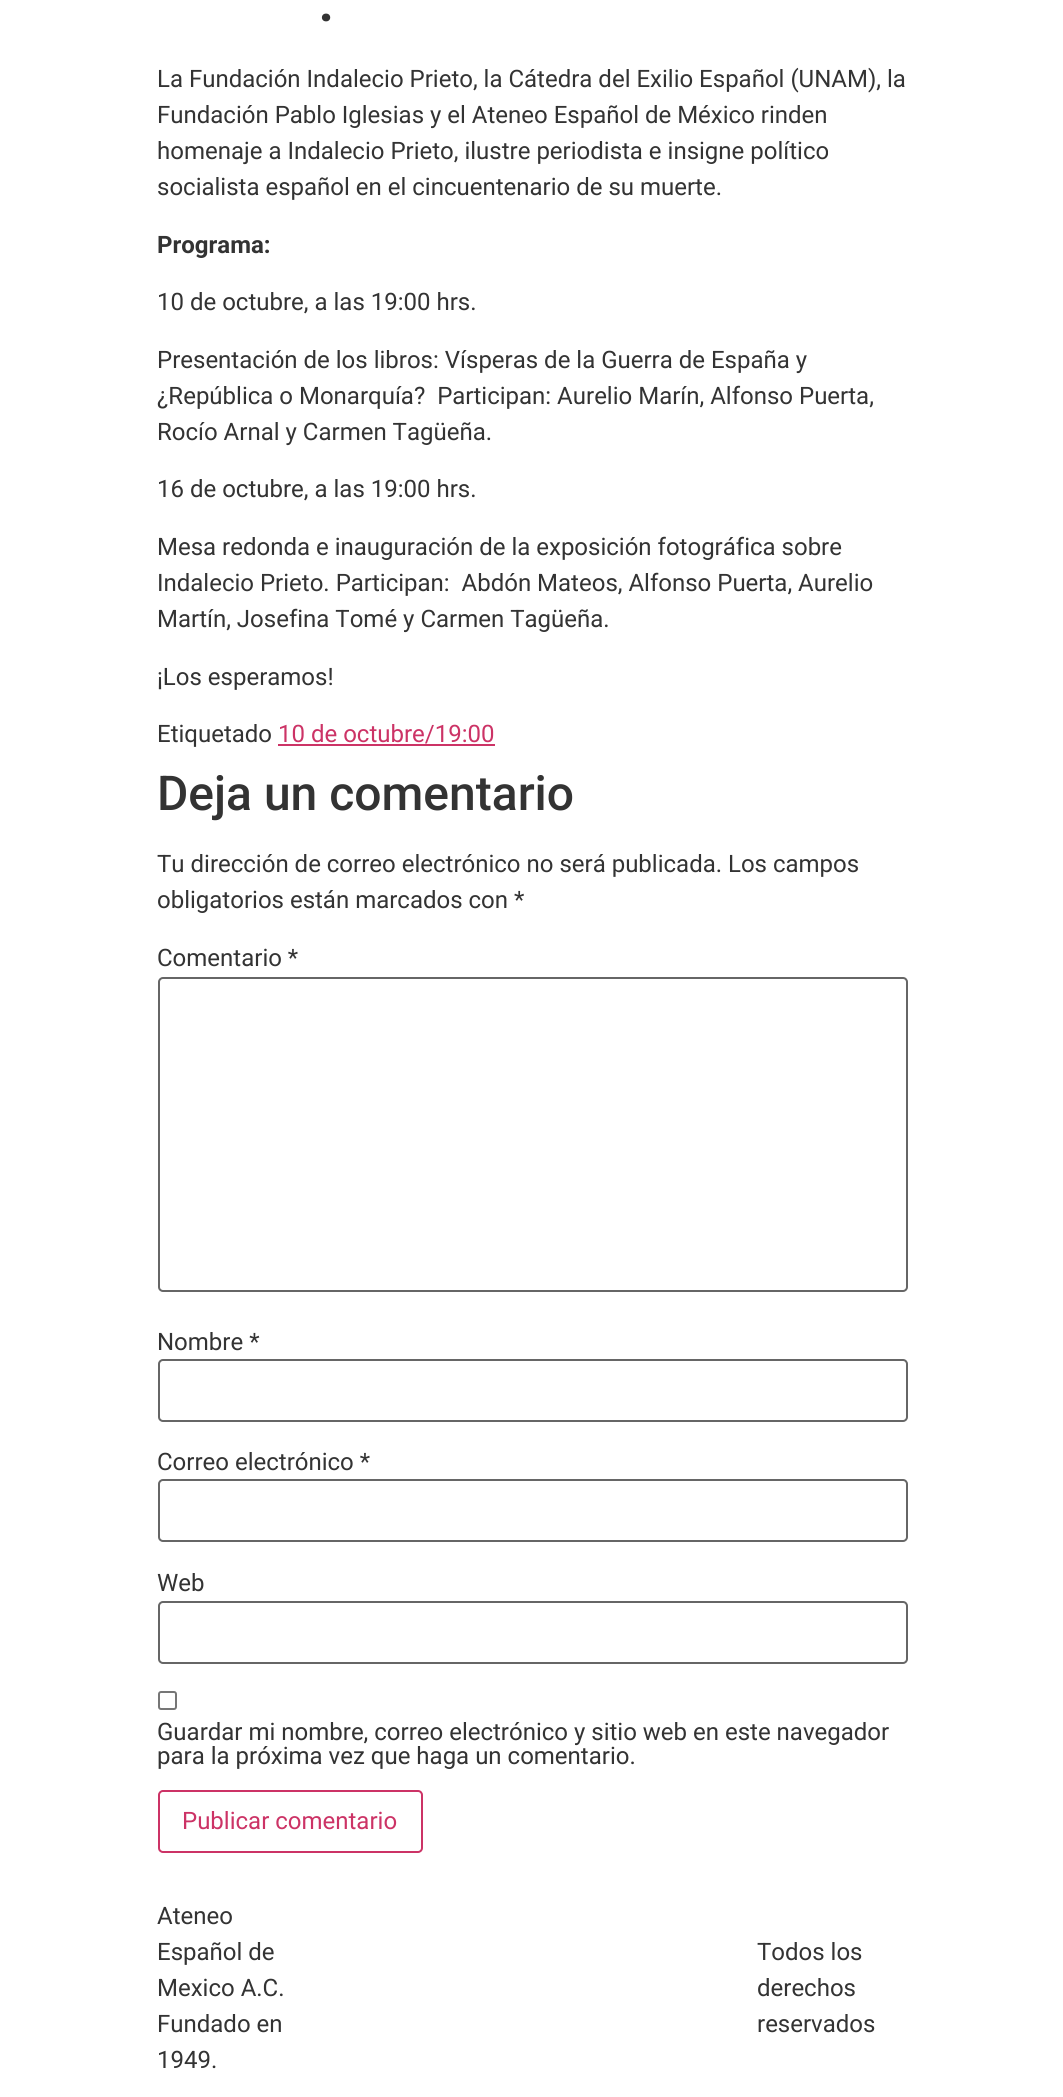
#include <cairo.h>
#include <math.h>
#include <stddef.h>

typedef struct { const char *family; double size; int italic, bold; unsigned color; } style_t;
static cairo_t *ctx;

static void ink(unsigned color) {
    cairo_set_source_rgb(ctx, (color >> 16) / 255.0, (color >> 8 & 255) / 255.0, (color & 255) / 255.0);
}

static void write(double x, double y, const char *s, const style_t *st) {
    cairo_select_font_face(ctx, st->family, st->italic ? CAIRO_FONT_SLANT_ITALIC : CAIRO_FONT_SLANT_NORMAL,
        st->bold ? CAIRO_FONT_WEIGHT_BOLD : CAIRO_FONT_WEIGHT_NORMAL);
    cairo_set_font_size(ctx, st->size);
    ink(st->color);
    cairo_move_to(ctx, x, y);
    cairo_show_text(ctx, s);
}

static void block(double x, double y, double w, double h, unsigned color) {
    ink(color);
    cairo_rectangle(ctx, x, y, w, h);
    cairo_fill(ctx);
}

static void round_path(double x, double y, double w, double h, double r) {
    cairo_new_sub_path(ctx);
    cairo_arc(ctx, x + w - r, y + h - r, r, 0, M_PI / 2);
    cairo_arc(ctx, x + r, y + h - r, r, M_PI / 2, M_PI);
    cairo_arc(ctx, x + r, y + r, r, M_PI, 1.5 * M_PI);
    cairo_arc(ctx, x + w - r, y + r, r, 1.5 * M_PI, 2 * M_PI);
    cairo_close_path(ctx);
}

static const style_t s1 = {"Roboto Medium", 60, 0, 0, 0x333333};
static const style_t s2 = {"Roboto", 24, 0, 0, 0x333333};
static const style_t s3 = {"Roboto", 24, 0, 1, 0x333333};
static const style_t s4 = {"Roboto", 24, 0, 0, 0xcc3366};
static const style_t s5 = {"Roboto Medium", 48, 0, 0, 0x333333};

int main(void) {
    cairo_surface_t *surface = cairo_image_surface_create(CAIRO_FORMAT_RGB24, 1063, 2097);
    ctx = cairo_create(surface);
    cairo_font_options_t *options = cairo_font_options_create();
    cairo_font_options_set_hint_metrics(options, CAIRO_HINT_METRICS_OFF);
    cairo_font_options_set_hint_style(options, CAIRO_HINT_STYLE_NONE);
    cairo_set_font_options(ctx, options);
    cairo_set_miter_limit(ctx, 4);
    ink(0xffffff);
    cairo_paint(ctx);
    write(318, 21, ".", &s1);
    write(157, 87, "La Fundación Indalecio Prieto, la Cátedra del Exilio Español (UNAM), la", &s2);
    write(157, 123, "Fundación Pablo Iglesias y el Ateneo Español de México rinden", &s2);
    write(157, 159, "homenaje a Indalecio Prieto, ilustre periodista e insigne político", &s2);
    write(157, 195, "socialista español en el cincuentenario de su muerte.", &s2);
    write(157, 253, "Programa:", &s3);
    write(157, 310, "10 de octubre, a las 19:00 hrs.", &s2);
    write(157, 368, "Presentación de los libros: Vísperas de la Guerra de España y", &s2);
    write(157, 404, "¿República o Monarquía?  Participan: Aurelio Marín, Alfonso Puerta,", &s2);
    write(157, 440, "Rocío Arnal y Carmen Tagüeña.", &s2);
    write(157, 497, "16 de octubre, a las 19:00 hrs.", &s2);
    write(157, 555, "Mesa redonda e inauguración de la exposición fotográfica sobre", &s2);
    write(157, 591, "Indalecio Prieto. Participan:  Abdón Mateos, Alfonso Puerta, Aurelio", &s2);
    write(157, 627, "Martín, Josefina Tomé y Carmen Tagüeña.", &s2);
    write(157, 685, "¡Los esperamos!", &s2);
    write(157, 742, "Etiquetado", &s2);
    write(278, 742, "10 de octubre/19:00", &s4);
    block(278, 744, 217, 2, 0xcc3366);
    write(157, 810, "Deja un comentario", &s5);
    write(157, 872, "Tu dirección de correo electrónico no será publicada. Los campos", &s2);
    write(157, 908, "obligatorios están marcados con *", &s2);
    write(157, 966, "Comentario *", &s2);
    round_path(159, 978, 748, 313, 4);
    ink(0x666666);
    cairo_stroke(ctx);
    write(157, 1350, "Nombre *", &s2);
    round_path(159, 1360, 748, 61, 4);
    ink(0x666666);
    cairo_stroke(ctx);
    write(157, 1470, "Correo electrónico *", &s2);
    round_path(159, 1480, 748, 61, 4);
    ink(0x666666);
    cairo_stroke(ctx);
    write(157, 1591, "Web", &s2);
    round_path(159, 1602, 748, 61, 4);
    ink(0x666666);
    cairo_stroke(ctx);
    round_path(159, 1692, 17, 17, 2);
    ink(0x767676);
    cairo_stroke(ctx);
    write(157, 1740, "Guardar mi nombre, correo electrónico y sitio web en este navegador", &s2);
    write(157, 1764, "para la próxima vez que haga un comentario.", &s2);
    round_path(159, 1791, 263, 61, 4);
    ink(0xcc3366);
    cairo_stroke(ctx);
    write(182, 1829, "Publicar comentario", &s4);
    write(157, 1924, "Ateneo", &s2);
    write(157, 1960, "Español de", &s2);
    write(157, 1996, "Mexico A.C.", &s2);
    write(157, 2032, "Fundado en", &s2);
    write(157, 2068, "1949.", &s2);
    write(757, 1960, "Todos los", &s2);
    write(757, 1996, "derechos", &s2);
    write(757, 2032, "reservados", &s2);
    cairo_surface_write_to_png(surface, "screenshot.png");
    cairo_font_options_destroy(options);
    cairo_destroy(ctx);
    cairo_surface_destroy(surface);
    return 0;
}
